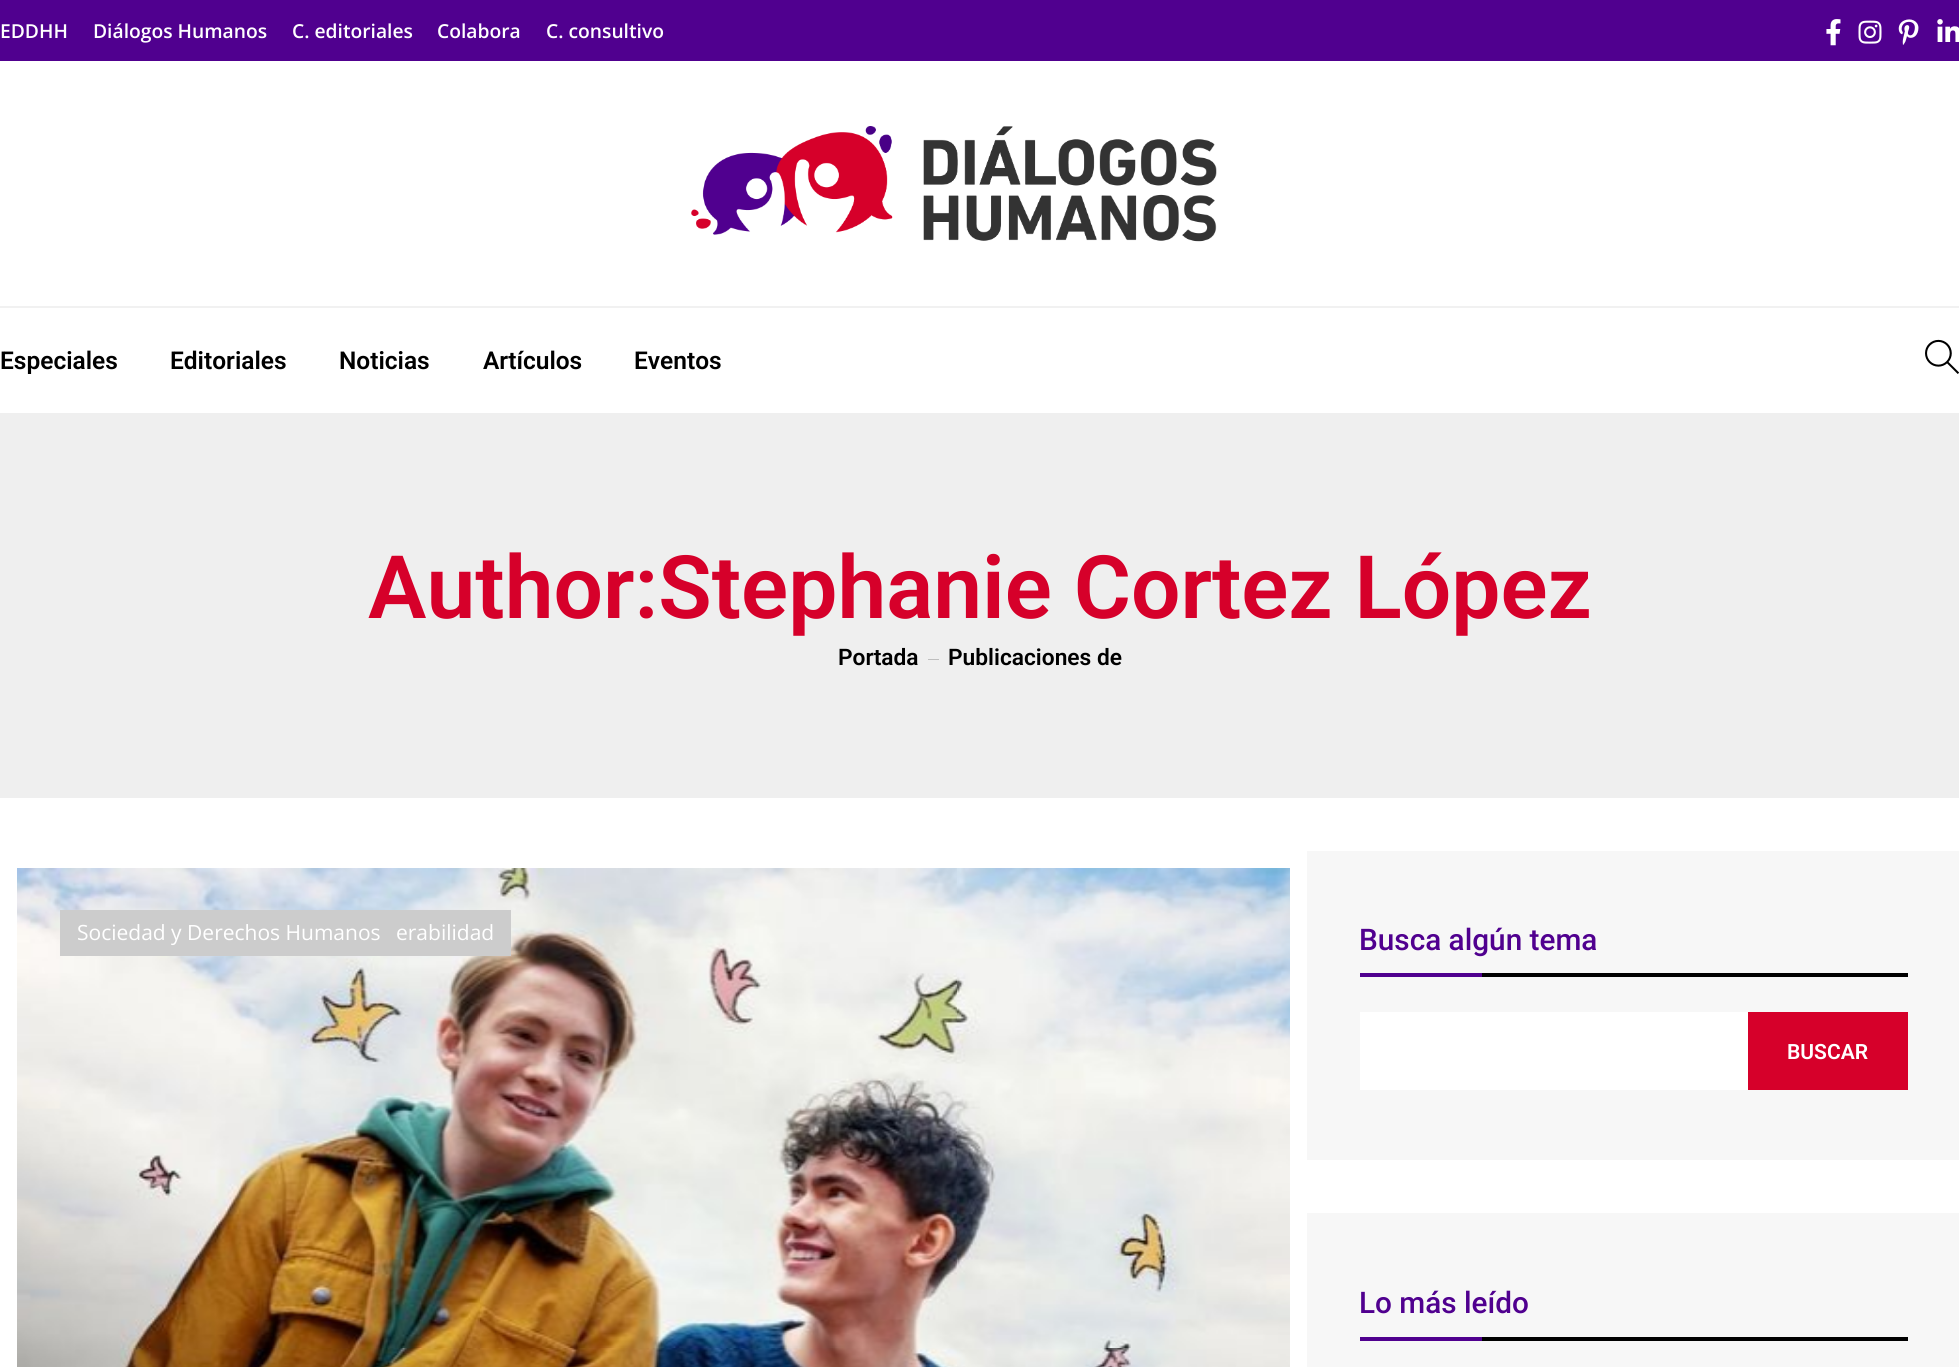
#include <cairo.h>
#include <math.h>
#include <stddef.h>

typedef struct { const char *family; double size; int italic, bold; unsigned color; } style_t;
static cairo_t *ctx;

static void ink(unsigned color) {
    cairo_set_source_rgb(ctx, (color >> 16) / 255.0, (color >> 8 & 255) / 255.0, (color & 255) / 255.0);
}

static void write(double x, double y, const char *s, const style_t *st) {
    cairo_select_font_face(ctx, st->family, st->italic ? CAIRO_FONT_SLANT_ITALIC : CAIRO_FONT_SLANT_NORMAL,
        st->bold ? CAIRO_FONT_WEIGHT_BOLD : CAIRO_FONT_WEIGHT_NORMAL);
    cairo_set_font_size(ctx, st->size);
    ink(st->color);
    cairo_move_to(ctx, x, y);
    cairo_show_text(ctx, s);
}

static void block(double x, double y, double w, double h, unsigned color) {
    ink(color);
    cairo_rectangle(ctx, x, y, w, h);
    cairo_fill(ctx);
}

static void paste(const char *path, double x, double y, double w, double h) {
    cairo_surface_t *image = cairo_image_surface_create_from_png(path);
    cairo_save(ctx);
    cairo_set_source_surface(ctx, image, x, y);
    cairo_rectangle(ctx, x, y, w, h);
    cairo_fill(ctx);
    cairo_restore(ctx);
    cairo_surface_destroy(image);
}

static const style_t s1 = {"Open Sans SemiBold", 19.25, 0, 0, 0xffffff};
static const style_t s2 = {"Roboto SemiBold", 24.5, 0, 0, 0x000000};
static const style_t s3 = {"Roboto SemiBold", 87.5, 0, 0, 0xd6002a};
static const style_t s4 = {"Roboto SemiBold", 22.75, 0, 0, 0x000000};
static const style_t s5 = {"Open Sans", 21, 0, 0, 0xffffff};
static const style_t s6 = {"Roboto Medium", 29.75, 0, 0, 0x50008f};
static const style_t s7 = {"Roboto SemiBold", 21, 0, 0, 0xffffff};

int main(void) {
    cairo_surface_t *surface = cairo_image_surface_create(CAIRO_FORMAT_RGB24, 1959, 1367);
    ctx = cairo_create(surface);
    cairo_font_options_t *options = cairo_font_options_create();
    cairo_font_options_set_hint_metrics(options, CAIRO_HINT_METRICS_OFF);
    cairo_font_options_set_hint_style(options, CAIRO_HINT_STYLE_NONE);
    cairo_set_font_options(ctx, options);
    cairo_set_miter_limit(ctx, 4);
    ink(0xffffff);
    cairo_paint(ctx);
    block(0, 0, 1959, 61, 0x50008f);
    write(0, 38, "EDDHH", &s1);
    write(93, 38, "Diálogos Humanos", &s1);
    write(292, 38, "C. editoriales", &s1);
    write(437, 38, "Colabora", &s1);
    write(546, 38, "C. consultivo", &s1);
    paste("pic1.png", 1826, 19, 15, 27);
    paste("pic2.png", 1858, 20, 24, 24);
    paste("pic3.png", 1898, 19, 21, 26);
    paste("pic4.png", 1937, 19, 22, 23);
    paste("pic5.png", 691, 126, 526, 116);
    block(0, 306, 1959, 2, 0xf1f1f1);
    write(0, 369, "Especiales", &s2);
    write(170, 369, "Editoriales", &s2);
    write(339, 369, "Noticias", &s2);
    write(483, 369, "Artículos", &s2);
    write(634, 369, "Eventos", &s2);
    paste("pic6.png", 1925, 339, 34, 35);
    block(0, 413, 1959, 385, 0xefefef);
    write(368, 618, "Author:Stephanie Cortez López", &s3);
    write(838, 665, "Portada", &s4);
    block(928, 659, 11, 1, 0xbebebe);
    write(948, 665, "Publicaciones de", &s4);
    paste("pic7.png", 17, 868, 1273, 499);
    block(397, 910, 114, 46, 0xcccccc);
    write(396, 940, "erabilidad", &s5);
    block(60, 910, 337, 46, 0xcccccc);
    write(77, 940, "Sociedad y Derechos Humanos", &s5);
    block(1307, 851, 652, 309, 0xf7f7f7);
    block(1482, 973, 426, 4, 0x000000);
    write(1359, 950, "Busca algún tema", &s6);
    block(1360, 973, 122, 4, 0x50008f);
    block(1360, 1012, 388, 78, 0xffffff);
    block(1748, 1012, 160, 78, 0xd6002a);
    write(1787, 1059, "BUSCAR", &s7);
    block(1307, 1213, 652, 154, 0xf7f7f7);
    block(1482, 1337, 426, 4, 0x000000);
    write(1359, 1313, "Lo más leído", &s6);
    block(1360, 1337, 122, 4, 0x50008f);
    cairo_surface_write_to_png(surface, "screenshot.png");
    cairo_font_options_destroy(options);
    cairo_destroy(ctx);
    cairo_surface_destroy(surface);
    return 0;
}
